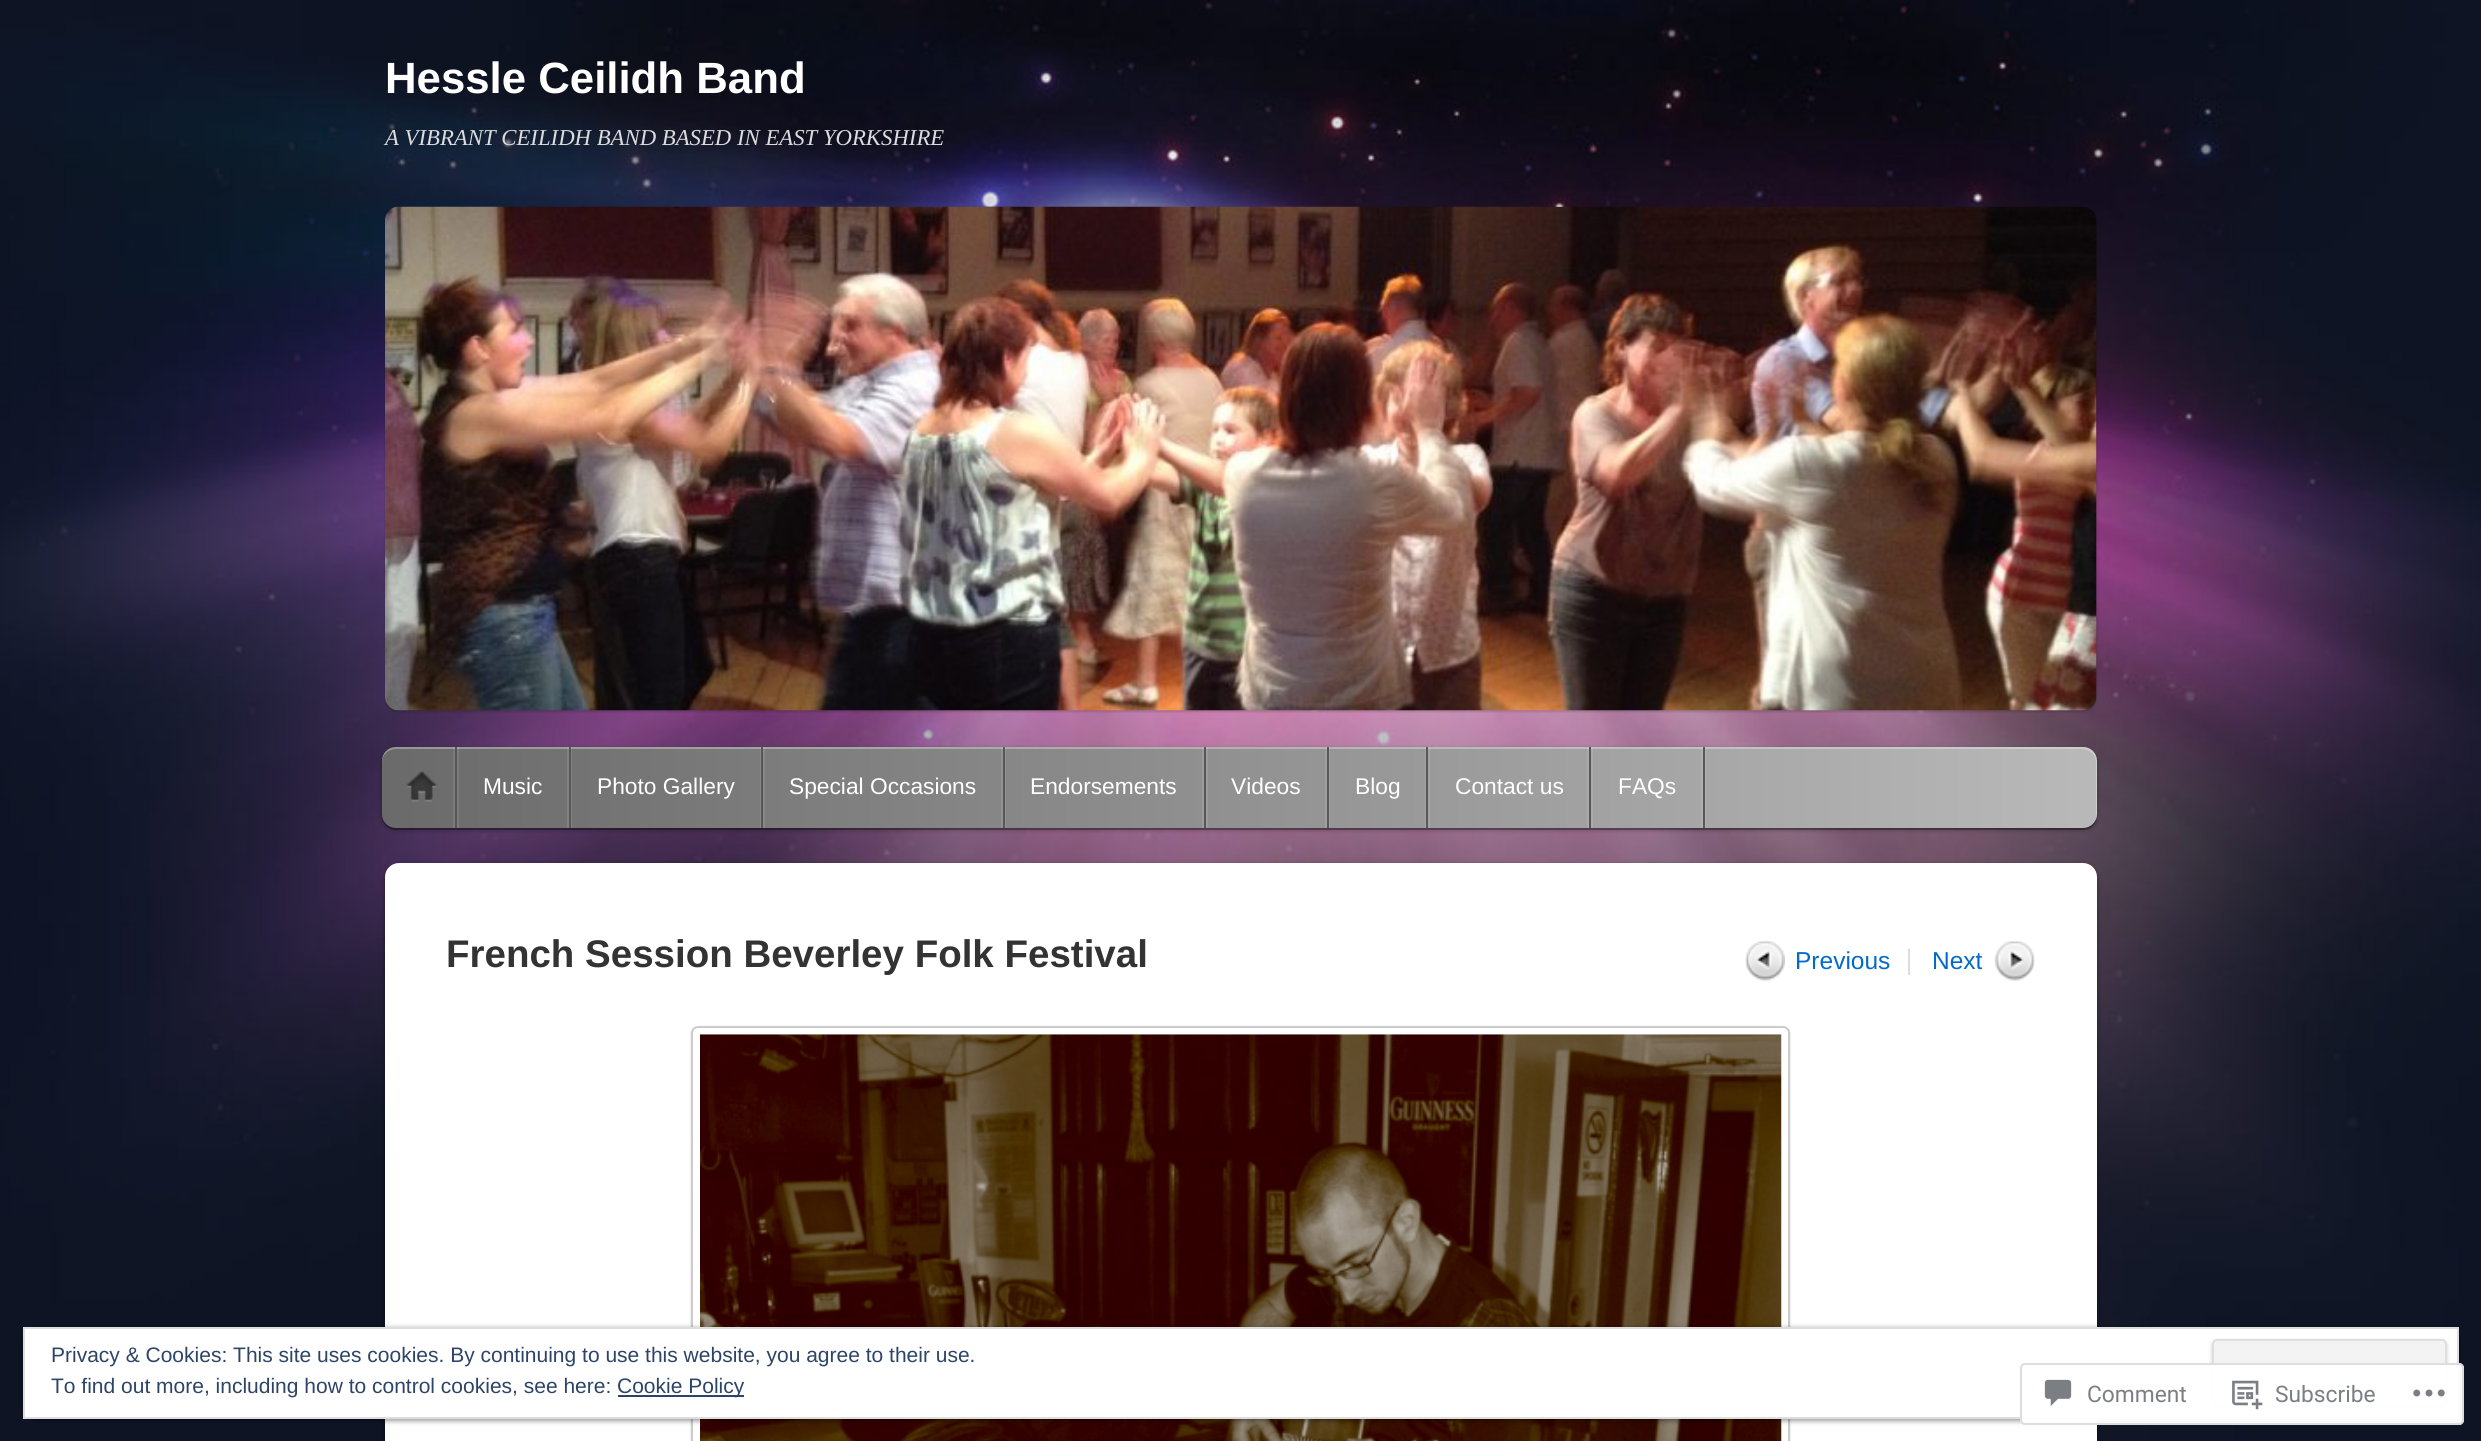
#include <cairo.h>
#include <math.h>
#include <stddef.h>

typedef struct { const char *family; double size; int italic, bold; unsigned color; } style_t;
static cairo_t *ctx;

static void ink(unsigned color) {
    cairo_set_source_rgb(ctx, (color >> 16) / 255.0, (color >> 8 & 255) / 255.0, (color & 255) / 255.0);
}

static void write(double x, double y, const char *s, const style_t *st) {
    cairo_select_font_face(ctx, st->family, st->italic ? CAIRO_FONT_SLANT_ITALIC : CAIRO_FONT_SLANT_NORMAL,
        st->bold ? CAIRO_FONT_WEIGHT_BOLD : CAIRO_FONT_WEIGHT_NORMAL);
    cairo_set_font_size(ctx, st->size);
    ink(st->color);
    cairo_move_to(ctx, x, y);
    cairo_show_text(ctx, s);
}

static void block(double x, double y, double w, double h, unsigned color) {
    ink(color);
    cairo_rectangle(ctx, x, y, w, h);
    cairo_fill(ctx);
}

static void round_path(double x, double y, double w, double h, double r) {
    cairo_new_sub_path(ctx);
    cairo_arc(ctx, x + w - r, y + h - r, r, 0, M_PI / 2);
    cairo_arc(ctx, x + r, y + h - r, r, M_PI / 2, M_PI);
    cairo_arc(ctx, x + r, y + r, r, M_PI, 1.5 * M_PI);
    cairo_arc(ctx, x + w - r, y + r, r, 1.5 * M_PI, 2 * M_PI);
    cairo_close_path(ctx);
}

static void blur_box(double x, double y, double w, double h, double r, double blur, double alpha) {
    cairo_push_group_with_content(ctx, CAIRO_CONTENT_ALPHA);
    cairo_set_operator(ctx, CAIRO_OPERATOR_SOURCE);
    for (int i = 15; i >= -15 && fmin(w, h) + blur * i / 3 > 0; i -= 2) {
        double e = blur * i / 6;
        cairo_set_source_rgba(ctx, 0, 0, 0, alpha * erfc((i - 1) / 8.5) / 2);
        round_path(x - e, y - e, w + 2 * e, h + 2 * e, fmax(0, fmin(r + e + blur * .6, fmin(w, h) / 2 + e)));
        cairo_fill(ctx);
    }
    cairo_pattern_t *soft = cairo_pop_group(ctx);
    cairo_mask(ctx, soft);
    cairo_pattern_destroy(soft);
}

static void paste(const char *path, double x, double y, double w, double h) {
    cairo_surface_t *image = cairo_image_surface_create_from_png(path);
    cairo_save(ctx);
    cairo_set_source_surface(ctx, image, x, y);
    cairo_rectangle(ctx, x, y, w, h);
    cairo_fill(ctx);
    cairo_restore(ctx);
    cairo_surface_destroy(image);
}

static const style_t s1 = {"Liberation Sans", 43.75, 0, 1, 0xffffff};
static const style_t s2 = {"Liberation Serif", 22.75, 1, 0, 0xdcdcdf};
static const style_t s3 = {"Liberation Sans", 22.75, 0, 0, 0xffffff};
static const style_t s4 = {"Liberation Sans", 38.5, 0, 1, 0x333333};
static const style_t s5 = {"Liberation Sans", 24.5, 0, 0, 0x026acb};
static const style_t s6 = {"Liberation Sans", 21, 0, 0, 0x2e4467};
static const style_t s7 = {"Roboto", 22.75, 0, 0, 0x7b7f85};

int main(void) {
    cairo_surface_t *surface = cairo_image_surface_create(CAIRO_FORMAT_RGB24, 2481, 1441);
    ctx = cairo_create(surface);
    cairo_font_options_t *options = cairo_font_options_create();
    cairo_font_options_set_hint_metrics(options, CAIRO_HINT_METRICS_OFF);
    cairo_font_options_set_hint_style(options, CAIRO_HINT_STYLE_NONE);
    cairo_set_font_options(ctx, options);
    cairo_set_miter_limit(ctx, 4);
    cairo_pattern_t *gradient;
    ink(0xffffff);
    cairo_paint(ctx);
    paste("pic1.png", 0, 0, 2481, 1441);
    write(385, 93, "Hessle Ceilidh Band", &s1);
    write(385, 145, "A VIBRANT CEILIDH BAND BASED IN EAST YORKSHIRE", &s2);
    ink(0x000000);
    blur_box(385, 208, 1712, 504, 14, 1, 0.15);
    paste("pic2.png", 385, 206, 1712, 505);
    blur_box(382, 749, 1715, 81, 14, 2.5, 0.3);
    cairo_set_source_rgba(ctx, 0, 0, 0, 0.3);
    cairo_new_path(ctx);
    cairo_move_to(ctx, 382, 818);
    cairo_curve_to(ctx, 383, 825, 389, 830, 396, 830);
    cairo_line_to(ctx, 2083, 830);
    cairo_curve_to(ctx, 2091, 830, 2097, 824, 2097, 816);
    cairo_line_to(ctx, 2097, 763);
    cairo_line_to(ctx, 2096, 758);
    cairo_line_to(ctx, 2096, 814);
    cairo_curve_to(ctx, 2096, 821, 2090, 828, 2082, 828);
    cairo_line_to(ctx, 396, 828);
    cairo_curve_to(ctx, 389, 828, 384, 824, 382, 818);
    cairo_close_path(ctx);
    cairo_fill(ctx);
    gradient = cairo_pattern_create_linear(2097, 788, 382, 787);
    cairo_pattern_add_color_stop_rgba(gradient, 0, 0.725, 0.725, 0.725, 1);
    cairo_pattern_add_color_stop_rgba(gradient, 1, 0.416, 0.416, 0.416, 1);
    cairo_set_source(ctx, gradient);
    cairo_pattern_destroy(gradient);
    round_path(382, 747, 1715, 81, 14);
    cairo_fill(ctx);
    cairo_set_source_rgba(ctx, 1, 1, 1, 0.3);
    cairo_new_path(ctx);
    cairo_move_to(ctx, 396, 749);
    cairo_line_to(ctx, 2082, 749);
    cairo_curve_to(ctx, 2090, 749, 2096, 755, 2096, 763);
    cairo_line_to(ctx, 2096, 816);
    cairo_curve_to(ctx, 2096, 818, 2096, 820, 2095, 822);
    cairo_curve_to(ctx, 2096, 820, 2097, 817, 2097, 814);
    cairo_line_to(ctx, 2097, 761);
    cairo_curve_to(ctx, 2097, 753, 2091, 747, 2083, 747);
    cairo_line_to(ctx, 396, 747);
    cairo_curve_to(ctx, 388, 747, 382, 753, 382, 761);
    cairo_line_to(ctx, 382, 763);
    cairo_curve_to(ctx, 382, 755, 388, 749, 396, 749);
    cairo_close_path(ctx);
    cairo_fill(ctx);
    cairo_set_source_rgba(ctx, 1, 1, 1, 0.1);
    cairo_new_path(ctx);
    cairo_move_to(ctx, 394, 747);
    cairo_line_to(ctx, 392, 747);
    cairo_line_to(ctx, 457, 747);
    cairo_line_to(ctx, 457, 828);
    cairo_line_to(ctx, 392, 828);
    cairo_line_to(ctx, 459, 828);
    cairo_line_to(ctx, 459, 747);
    cairo_close_path(ctx);
    cairo_fill(ctx);
    cairo_rectangle(ctx, 453, 747, 2, 81);
    cairo_fill(ctx);
    block(455, 747, 2, 81, 0x575757);
    paste("pic3.png", 406, 771, 31, 31);
    cairo_set_source_rgba(ctx, 1, 1, 1, 0.1);
    cairo_new_path(ctx);
    cairo_move_to(ctx, 459, 747);
    cairo_line_to(ctx, 570, 747);
    cairo_line_to(ctx, 570, 828);
    cairo_line_to(ctx, 459, 828);
    cairo_line_to(ctx, 572, 828);
    cairo_line_to(ctx, 572, 747);
    cairo_close_path(ctx);
    cairo_fill(ctx);
    cairo_rectangle(ctx, 567, 747, 2, 81);
    cairo_fill(ctx);
    block(569, 747, 2, 81, 0x575757);
    write(483, 794, "Music", &s3);
    cairo_set_source_rgba(ctx, 1, 1, 1, 0.1);
    cairo_new_path(ctx);
    cairo_move_to(ctx, 572, 747);
    cairo_line_to(ctx, 763, 747);
    cairo_line_to(ctx, 763, 828);
    cairo_line_to(ctx, 572, 828);
    cairo_line_to(ctx, 765, 828);
    cairo_line_to(ctx, 765, 747);
    cairo_close_path(ctx);
    cairo_fill(ctx);
    cairo_rectangle(ctx, 760, 747, 1, 81);
    cairo_fill(ctx);
    block(761, 747, 2, 81, 0x575757);
    write(597, 794, "Photo Gallery", &s3);
    cairo_set_source_rgba(ctx, 1, 1, 1, 0.1);
    cairo_new_path(ctx);
    cairo_move_to(ctx, 765, 747);
    cairo_line_to(ctx, 1004, 747);
    cairo_line_to(ctx, 1004, 828);
    cairo_line_to(ctx, 765, 828);
    cairo_line_to(ctx, 1006, 828);
    cairo_line_to(ctx, 1006, 747);
    cairo_close_path(ctx);
    cairo_fill(ctx);
    cairo_rectangle(ctx, 1001, 747, 2, 81);
    cairo_fill(ctx);
    block(1003, 747, 2, 81, 0x575757);
    write(789, 794, "Special Occasions", &s3);
    cairo_set_source_rgba(ctx, 1, 1, 1, 0.1);
    cairo_new_path(ctx);
    cairo_move_to(ctx, 1006, 747);
    cairo_line_to(ctx, 1206, 747);
    cairo_line_to(ctx, 1206, 828);
    cairo_line_to(ctx, 1006, 828);
    cairo_line_to(ctx, 1208, 828);
    cairo_line_to(ctx, 1208, 747);
    cairo_close_path(ctx);
    cairo_fill(ctx);
    cairo_rectangle(ctx, 1202, 747, 2, 81);
    cairo_fill(ctx);
    block(1204, 747, 2, 81, 0x575757);
    write(1030, 794, "Endorsements", &s3);
    cairo_set_source_rgba(ctx, 1, 1, 1, 0.1);
    cairo_new_path(ctx);
    cairo_move_to(ctx, 1208, 747);
    cairo_line_to(ctx, 1328, 747);
    cairo_line_to(ctx, 1328, 828);
    cairo_line_to(ctx, 1208, 828);
    cairo_line_to(ctx, 1330, 828);
    cairo_line_to(ctx, 1330, 747);
    cairo_close_path(ctx);
    cairo_fill(ctx);
    cairo_rectangle(ctx, 1325, 747, 2, 81);
    cairo_fill(ctx);
    block(1327, 747, 2, 81, 0x575757);
    write(1231, 794, "Videos", &s3);
    cairo_set_source_rgba(ctx, 1, 1, 1, 0.1);
    cairo_new_path(ctx);
    cairo_move_to(ctx, 1330, 747);
    cairo_line_to(ctx, 1428, 747);
    cairo_line_to(ctx, 1428, 828);
    cairo_line_to(ctx, 1330, 828);
    cairo_line_to(ctx, 1430, 828);
    cairo_line_to(ctx, 1430, 747);
    cairo_close_path(ctx);
    cairo_fill(ctx);
    cairo_rectangle(ctx, 1425, 747, 1, 81);
    cairo_fill(ctx);
    block(1426, 747, 2, 81, 0x575757);
    write(1355, 794, "Blog", &s3);
    cairo_set_source_rgba(ctx, 1, 1, 1, 0.1);
    cairo_new_path(ctx);
    cairo_move_to(ctx, 1430, 747);
    cairo_line_to(ctx, 1591, 747);
    cairo_line_to(ctx, 1591, 828);
    cairo_line_to(ctx, 1430, 828);
    cairo_line_to(ctx, 1593, 828);
    cairo_line_to(ctx, 1593, 747);
    cairo_close_path(ctx);
    cairo_fill(ctx);
    cairo_rectangle(ctx, 1587, 747, 2, 81);
    cairo_fill(ctx);
    block(1589, 747, 2, 81, 0x575757);
    write(1455, 794, "Contact us", &s3);
    cairo_set_source_rgba(ctx, 1, 1, 1, 0.1);
    cairo_new_path(ctx);
    cairo_move_to(ctx, 1593, 747);
    cairo_line_to(ctx, 1704, 747);
    cairo_line_to(ctx, 1704, 828);
    cairo_line_to(ctx, 1593, 828);
    cairo_line_to(ctx, 1706, 828);
    cairo_line_to(ctx, 1706, 747);
    cairo_close_path(ctx);
    cairo_fill(ctx);
    cairo_rectangle(ctx, 1701, 747, 2, 81);
    cairo_fill(ctx);
    block(1703, 747, 2, 81, 0x575757);
    write(1618, 794, "FAQs", &s3);
    ink(0x000000);
    blur_box(385, 865, 1712, 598, 14, 2.5, 0.4);
    ink(0xffffff);
    round_path(385, 863, 1712, 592, 14);
    cairo_fill(ctx);
    write(446, 967, "French Session Beverley Folk Festival", &s4);
    paste("pic4.png", 1745, 940, 40, 41);
    write(1795, 969, "Previous", &s5);
    block(1908, 949, 2, 26, 0xdddddd);
    paste("pic5.png", 1994, 941, 41, 40);
    write(1932, 969, "Next", &s5);
    ink(0x000000);
    blur_box(691, 1027, 1099, 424, 7, 1, 0.15);
    ink(0xffffff);
    round_path(692, 1027, 1097, 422, 6);
    cairo_fill_preserve(ctx);
    ink(0xcccccc);
    cairo_stroke(ctx);
    paste("pic6.png", 700, 1034, 1082, 407);
    ink(0x000000);
    blur_box(23, 1328, 2436, 93, 14, 2.5, 0.4);
    ink(0xffffff);
    cairo_rectangle(ctx, 24, 1328, 2434, 90);
    cairo_fill_preserve(ctx);
    ink(0xdedede);
    cairo_stroke(ctx);
    write(51, 1362, "Privacy & Cookies: This site uses cookies. By continuing to use this website, you agree to their use.", &s6);
    ink(0x000000);
    blur_box(2212, 1341, 235, 68, 5, 2, 0.2);
    ink(0xf3f3f3);
    round_path(2213, 1340, 233, 66, 4);
    cairo_fill_preserve(ctx);
    ink(0xdedede);
    cairo_stroke(ctx);
    write(51, 1393, "To find out more, including how to control cookies, see here:", &s6);
    block(618, 1395, 126, 2, 0x2e4467);
    write(617, 1393, "Cookie Policy", &s6);
    cairo_set_source_rgba(ctx, 1, 1, 1, 0.98);
    round_path(2020, 1363, 444, 62, 5);
    cairo_fill(ctx);
    round_path(2021, 1364, 442, 60, 4);
    cairo_set_source_rgba(ctx, 0.863, 0.863, 0.871, 0.98);
    cairo_stroke(ctx);
    paste("pic7.png", 2044, 1379, 28, 27);
    write(2087, 1402, "Comment", &s7);
    paste("pic8.png", 2232, 1380, 31, 30);
    write(2275, 1402, "Subscribe", &s7);
    paste("pic9.png", 2413, 1389, 32, 8);
    cairo_surface_write_to_png(surface, "screenshot.png");
    cairo_font_options_destroy(options);
    cairo_destroy(ctx);
    cairo_surface_destroy(surface);
    return 0;
}
